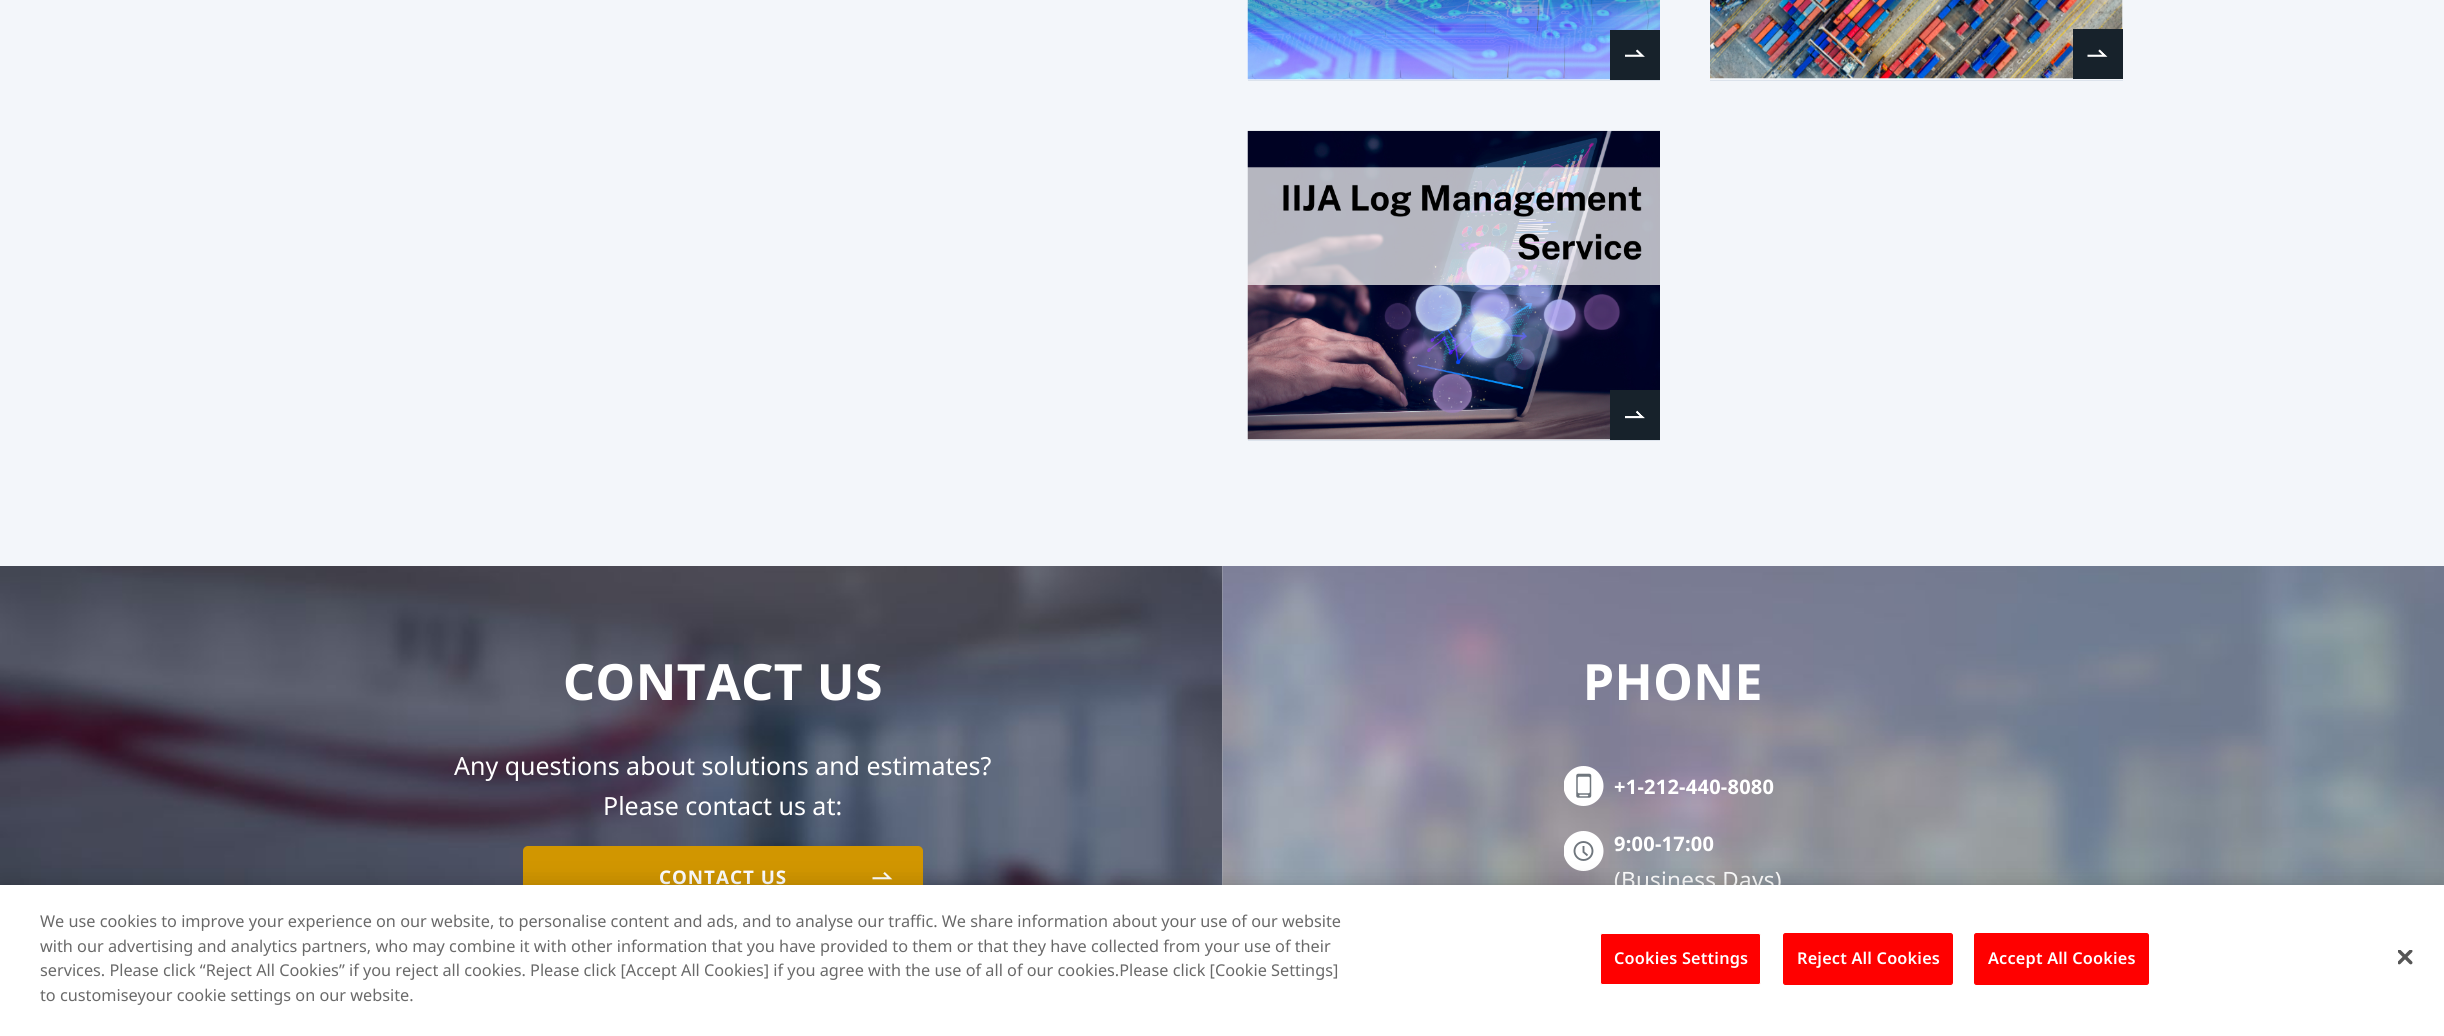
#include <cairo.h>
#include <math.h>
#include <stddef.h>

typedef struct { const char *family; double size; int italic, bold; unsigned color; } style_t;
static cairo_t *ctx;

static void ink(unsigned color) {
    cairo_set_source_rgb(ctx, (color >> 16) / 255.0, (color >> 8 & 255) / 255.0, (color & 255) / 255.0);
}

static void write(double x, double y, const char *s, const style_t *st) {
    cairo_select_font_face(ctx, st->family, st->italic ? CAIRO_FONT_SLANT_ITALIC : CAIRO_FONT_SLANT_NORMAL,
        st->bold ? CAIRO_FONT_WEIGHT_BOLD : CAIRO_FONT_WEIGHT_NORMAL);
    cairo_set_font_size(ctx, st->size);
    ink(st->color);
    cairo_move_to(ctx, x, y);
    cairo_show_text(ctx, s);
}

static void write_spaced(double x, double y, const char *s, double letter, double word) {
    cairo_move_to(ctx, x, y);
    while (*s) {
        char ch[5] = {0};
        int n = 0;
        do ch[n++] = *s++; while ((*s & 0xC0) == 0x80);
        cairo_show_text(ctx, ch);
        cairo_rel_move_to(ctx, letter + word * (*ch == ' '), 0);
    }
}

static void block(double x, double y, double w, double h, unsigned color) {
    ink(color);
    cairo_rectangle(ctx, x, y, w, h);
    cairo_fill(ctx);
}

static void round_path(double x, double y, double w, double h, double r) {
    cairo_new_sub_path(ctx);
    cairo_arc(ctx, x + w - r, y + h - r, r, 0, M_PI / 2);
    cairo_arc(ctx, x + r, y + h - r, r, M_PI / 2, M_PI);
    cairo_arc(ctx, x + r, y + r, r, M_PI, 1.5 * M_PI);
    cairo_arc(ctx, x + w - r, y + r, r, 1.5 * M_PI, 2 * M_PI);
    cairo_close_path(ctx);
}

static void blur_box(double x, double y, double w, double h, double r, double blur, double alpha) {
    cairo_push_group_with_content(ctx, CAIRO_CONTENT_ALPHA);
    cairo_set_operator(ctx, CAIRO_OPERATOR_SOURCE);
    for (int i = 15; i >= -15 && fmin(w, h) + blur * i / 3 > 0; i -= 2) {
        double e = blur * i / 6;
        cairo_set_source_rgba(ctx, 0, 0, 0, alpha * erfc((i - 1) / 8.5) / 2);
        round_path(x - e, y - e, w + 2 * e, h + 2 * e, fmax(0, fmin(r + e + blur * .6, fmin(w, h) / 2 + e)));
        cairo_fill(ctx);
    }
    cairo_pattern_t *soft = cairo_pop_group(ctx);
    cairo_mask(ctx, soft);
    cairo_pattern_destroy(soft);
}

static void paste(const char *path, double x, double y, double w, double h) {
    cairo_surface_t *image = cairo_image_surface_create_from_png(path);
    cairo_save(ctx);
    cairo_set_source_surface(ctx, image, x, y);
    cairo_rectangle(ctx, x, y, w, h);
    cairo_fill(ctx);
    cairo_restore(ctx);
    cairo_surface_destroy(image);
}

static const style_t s1 = {"Noto Sans", 25, 0, 0, 0xffffff};
static const style_t s2 = {"Noto Sans", 16.25, 0, 0, 0x696969};

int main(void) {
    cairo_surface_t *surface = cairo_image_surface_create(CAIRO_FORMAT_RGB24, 2444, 1036);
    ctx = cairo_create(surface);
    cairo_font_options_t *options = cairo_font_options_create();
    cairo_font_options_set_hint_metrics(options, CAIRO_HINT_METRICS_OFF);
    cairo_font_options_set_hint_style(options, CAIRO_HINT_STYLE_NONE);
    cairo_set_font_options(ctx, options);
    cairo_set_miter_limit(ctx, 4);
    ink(0xffffff);
    cairo_paint(ctx);
    block(0, 0, 2444, 566, 0xf3f6fa);
    block(1248, 80, 412, 1, 0xdce3ec);
    paste("pic1.png", 1247, 0, 413, 80);
    block(1610, 30, 50, 50, 0x17222b);
    paste("pic2.png", 1625, 49, 20, 8);
    block(1710, 80, 413, 1, 0xdce3ec);
    paste("pic3.png", 1710, 0, 413, 79);
    block(2073, 29, 50, 50, 0x17222b);
    paste("pic4.png", 2087, 49, 21, 8);
    block(1248, 440, 412, 1, 0xdce3ec);
    paste("pic5.png", 1247, 130, 413, 310);
    block(1610, 390, 50, 50, 0x17222b);
    paste("pic6.png", 1625, 410, 20, 9);
    paste("pic7.png", 0, 566, 1223, 319);
    cairo_select_font_face(ctx, "Noto Sans", CAIRO_FONT_SLANT_NORMAL, CAIRO_FONT_WEIGHT_BOLD);
    cairo_set_font_size(ctx, 50);
    ink(0xffffff);
    write_spaced(563, 700, "CONTACT US", 0.5, 0);
    write(454, 775, "Any questions about solutions and estimates?", &s1);
    write(603, 815, "Please contact us at:", &s1);
    ink(0xd19600);
    round_path(523, 846, 400, 60, 5);
    cairo_fill(ctx);
    paste("pic8.png", 872, 872, 21, 8);
    cairo_select_font_face(ctx, "Noto Sans", CAIRO_FONT_SLANT_NORMAL, CAIRO_FONT_WEIGHT_BOLD);
    cairo_set_font_size(ctx, 18.75);
    ink(0xffffff);
    write_spaced(659, 884, "CONTACT US", 1, 0);
    paste("pic9.png", 1222, 566, 1222, 319);
    cairo_set_font_size(ctx, 50);
    write_spaced(1583, 700, "PHONE", 0.5, 0);
    paste("pic10.png", 1564, 766, 40, 40);
    cairo_set_font_size(ctx, 20);
    write_spaced(1614, 794, "+1-212-440-8080", 0.25, 0);
    cairo_save(ctx);
    cairo_rectangle(ctx, 1564, 831, 40, 40);
    cairo_clip(ctx);
    cairo_arc(ctx, 1583.5, 851, 20, 0, 2 * M_PI);
    cairo_fill(ctx);
    cairo_restore(ctx);
    cairo_arc(ctx, 1583.5, 851, 9, 0, 2 * M_PI);
    ink(0x6f767d);
    cairo_set_line_width(ctx, 1.9);
    cairo_stroke(ctx);
    cairo_new_path(ctx);
    cairo_move_to(ctx, 1587.5, 855.5);
    cairo_line_to(ctx, 1583.5, 852);
    cairo_line_to(ctx, 1583.5, 846);
    cairo_stroke(ctx);
    ink(0xffffff);
    write_spaced(1614, 851, "9:00-17:00", 0.25, 0);
    cairo_select_font_face(ctx, "Noto Sans", CAIRO_FONT_SLANT_NORMAL, CAIRO_FONT_WEIGHT_NORMAL);
    cairo_set_font_size(ctx, 22.5);
    write_spaced(1614, 888, "(Business Days)", 0.25, 0);
    ink(0x000000);
    blur_box(0, 885, 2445, 151, 0, 11, 0.2);
    block(0, 885, 2444, 151, 0xffffff);
    write(40, 927, "We use cookies to improve your experience on our website, to personalise content and ads, and to analyse our traffic. We share information about your use of our website", &s2);
    write(40, 952, "with our advertising and analytics partners, who may combine it with other information that you have provided to them or that they have collected from your use of their", &s2);
    write(40, 976, "services. Please click “Reject All Cookies” if you reject all cookies. Please click [Accept All Cookies] if you agree with the use of all of our cookies.Please click [Cookie Settings]", &s2);
    write(40, 1001, "to customiseyour cookie settings on our website.", &s2);
    ink(0xff0000);
    round_path(1600.5, 933.5, 160, 51, 2);
    cairo_fill_preserve(ctx);
    ink(0xffffff);
    cairo_set_line_width(ctx, 1);
    cairo_stroke(ctx);
    cairo_select_font_face(ctx, "Noto Sans SemiBold", CAIRO_FONT_SLANT_NORMAL, CAIRO_FONT_WEIGHT_NORMAL);
    write_spaced(1614, 964, "Cookies Settings", 0.2, 0);
    ink(0xff0000);
    round_path(1783.5, 933.5, 169, 51, 2);
    cairo_fill_preserve(ctx);
    cairo_stroke(ctx);
    ink(0xffffff);
    write_spaced(1797, 964, "Reject All Cookies", 0.2, 0);
    ink(0xff0000);
    round_path(1974.5, 933.5, 174, 51, 2);
    cairo_fill_preserve(ctx);
    cairo_stroke(ctx);
    ink(0xffffff);
    write_spaced(1988, 964, "Accept All Cookies", 0.2, 0);
    paste("pic11.png", 2398, 950, 15, 15);
    cairo_surface_write_to_png(surface, "screenshot.png");
    cairo_font_options_destroy(options);
    cairo_destroy(ctx);
    cairo_surface_destroy(surface);
    return 0;
}
